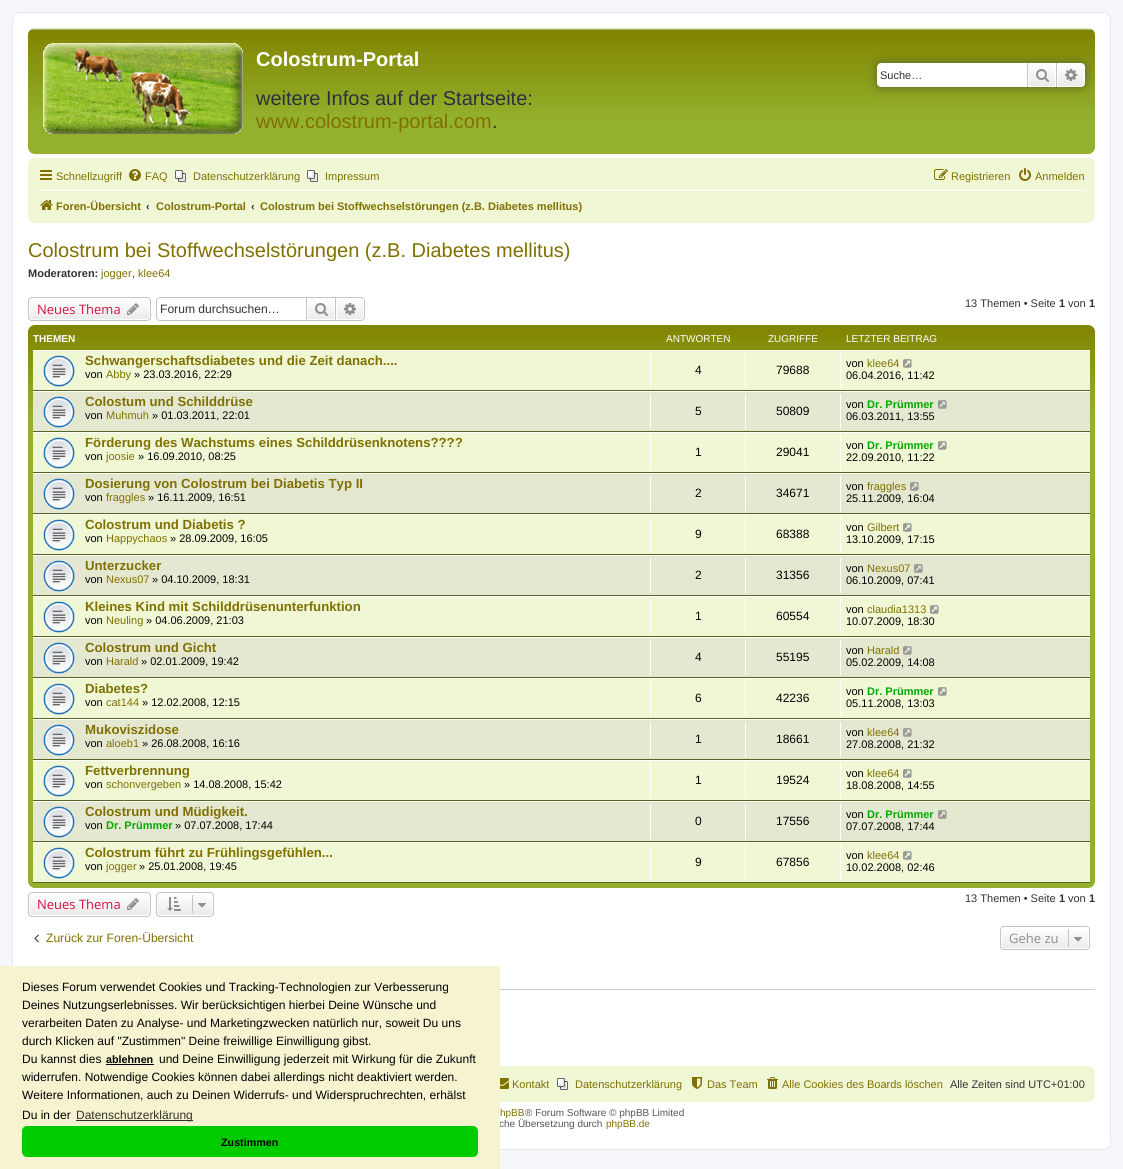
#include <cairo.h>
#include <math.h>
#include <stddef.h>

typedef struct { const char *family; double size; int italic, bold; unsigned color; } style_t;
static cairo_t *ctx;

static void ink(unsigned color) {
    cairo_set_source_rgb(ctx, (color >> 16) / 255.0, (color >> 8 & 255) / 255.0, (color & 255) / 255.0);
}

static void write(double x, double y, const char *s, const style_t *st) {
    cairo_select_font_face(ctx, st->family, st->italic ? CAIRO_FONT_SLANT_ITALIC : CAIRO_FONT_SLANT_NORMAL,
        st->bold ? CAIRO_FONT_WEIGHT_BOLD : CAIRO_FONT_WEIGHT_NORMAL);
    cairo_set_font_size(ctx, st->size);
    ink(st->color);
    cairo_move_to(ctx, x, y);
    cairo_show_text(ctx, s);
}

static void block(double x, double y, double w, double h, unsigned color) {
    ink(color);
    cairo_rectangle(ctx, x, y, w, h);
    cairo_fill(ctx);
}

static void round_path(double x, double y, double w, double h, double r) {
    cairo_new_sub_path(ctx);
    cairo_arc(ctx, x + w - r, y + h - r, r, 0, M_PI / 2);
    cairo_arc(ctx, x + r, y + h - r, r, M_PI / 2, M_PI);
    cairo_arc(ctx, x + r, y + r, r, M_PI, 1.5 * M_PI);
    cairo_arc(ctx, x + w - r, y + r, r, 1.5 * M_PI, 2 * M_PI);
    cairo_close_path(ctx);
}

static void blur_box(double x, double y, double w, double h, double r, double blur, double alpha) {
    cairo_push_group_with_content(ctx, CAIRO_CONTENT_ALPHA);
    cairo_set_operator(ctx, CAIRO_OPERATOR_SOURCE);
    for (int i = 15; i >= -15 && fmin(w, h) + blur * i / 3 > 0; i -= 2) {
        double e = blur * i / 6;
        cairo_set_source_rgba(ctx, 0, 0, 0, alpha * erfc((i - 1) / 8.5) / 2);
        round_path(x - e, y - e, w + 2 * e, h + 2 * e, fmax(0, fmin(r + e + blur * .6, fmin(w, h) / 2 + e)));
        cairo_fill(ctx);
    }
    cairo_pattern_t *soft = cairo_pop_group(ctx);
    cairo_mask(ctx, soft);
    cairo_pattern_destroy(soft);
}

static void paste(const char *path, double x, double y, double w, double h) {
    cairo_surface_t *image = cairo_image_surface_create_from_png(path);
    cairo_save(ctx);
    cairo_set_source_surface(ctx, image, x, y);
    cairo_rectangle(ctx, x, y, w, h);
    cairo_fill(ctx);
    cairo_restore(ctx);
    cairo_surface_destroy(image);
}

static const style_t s1 = {"Liberation Sans", 20, 0, 1, 0xffffff};
static const style_t s2 = {"Liberation Sans", 20, 0, 0, 0x28313f};
static const style_t s3 = {"Liberation Sans", 20, 0, 0, 0x807001};
static const style_t s4 = {"Liberation Sans", 11, 0, 0, 0x333333};
static const style_t s5 = {"Liberation Sans", 11, 0, 0, 0x807001};
static const style_t s6 = {"Liberation Sans", 11, 0, 1, 0x807001};
static const style_t s7 = {"Liberation Sans", 11, 0, 1, 0x333333};
static const style_t s8 = {"Open Sans", 13, 0, 0, 0xd31141};
static const style_t s9 = {"Liberation Sans", 12.1, 0, 0, 0x333333};
static const style_t s10 = {"Liberation Sans", 10, 0, 1, 0xffffff};
static const style_t s11 = {"Liberation Sans", 10, 0, 0, 0xffffff};
static const style_t s12 = {"Liberation Sans", 13.2, 0, 1, 0x807001};
static const style_t s13 = {"Liberation Sans", 11, 0, 0, 0x000000};
static const style_t s14 = {"Liberation Sans", 12, 0, 0, 0x000000};
static const style_t s15 = {"Liberation Sans", 11, 0, 1, 0x00aa00};
static const style_t s16 = {"Liberation Sans", 12.1, 0, 0, 0x807001};
static const style_t s17 = {"Open Sans", 13, 0, 0, 0x8f8f8f};
static const style_t s18 = {"Liberation Sans", 10, 0, 0, 0x807001};
static const style_t s19 = {"Liberation Sans", 10, 0, 0, 0x555555};
static const style_t s20 = {"Liberation Sans", 10.75, 0, 1, 0x000000};
static const style_t s21 = {"Liberation Sans", 12, 0, 0, 0x31312a};

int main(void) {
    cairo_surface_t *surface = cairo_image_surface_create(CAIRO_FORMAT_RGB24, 1123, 1169);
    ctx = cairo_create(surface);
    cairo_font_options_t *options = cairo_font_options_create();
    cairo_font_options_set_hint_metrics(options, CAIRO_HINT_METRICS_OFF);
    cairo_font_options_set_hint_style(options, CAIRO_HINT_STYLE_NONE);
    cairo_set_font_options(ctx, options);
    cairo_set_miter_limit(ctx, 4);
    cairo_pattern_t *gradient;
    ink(0xf5f7fa);
    cairo_paint(ctx);
    ink(0xffffff);
    round_path(12.5, 12.5, 1098, 1137, 7.5);
    cairo_fill_preserve(ctx);
    ink(0xe6e9ed);
    cairo_set_line_width(ctx, 1);
    cairo_stroke(ctx);
    gradient = cairo_pattern_create_linear(562, 28, 562, 154);
    cairo_pattern_add_color_stop_rgba(gradient, 0, 0.922, 1, 1, 1);
    cairo_pattern_add_color_stop_rgba(gradient, 0.02, 0.506, 0.518, 0, 1);
    cairo_pattern_add_color_stop_rgba(gradient, 0.73, 0.576, 0.694, 0.176, 1);
    cairo_pattern_add_color_stop_rgba(gradient, 1, 0.576, 0.694, 0.176, 1);
    cairo_set_source(ctx, gradient);
    cairo_pattern_destroy(gradient);
    round_path(28, 28, 1067, 126, 7);
    cairo_fill(ctx);
    paste("pic1.png", 43, 43, 200, 91);
    write(256, 66, "Colostrum-Portal", &s1);
    write(256, 105, "weitere Infos auf der Startseite:", &s2);
    write(256, 128, "www.colostrum-portal.com", &s3);
    write(492, 128, ".", &s2);
    ink(0x566424);
    blur_box(877, 63, 208, 24, 4, 5, 1);
    ink(0xffffff);
    cairo_new_path(ctx);
    cairo_move_to(ctx, 881, 63);
    cairo_line_to(ctx, 1027, 63);
    cairo_line_to(ctx, 1027, 87);
    cairo_line_to(ctx, 881, 87);
    cairo_curve_to(ctx, 879, 87, 877, 85, 877, 83);
    cairo_line_to(ctx, 877, 67);
    cairo_curve_to(ctx, 877, 65, 879, 63, 881, 63);
    cairo_close_path(ctx);
    cairo_fill(ctx);
    write(880, 79, "Suche…", &s4);
    gradient = cairo_pattern_create_linear(1042, 63, 1042, 87);
    cairo_pattern_add_color_stop_rgba(gradient, 0, 1, 1, 1, 1);
    cairo_pattern_add_color_stop_rgba(gradient, 1, 0.914, 0.914, 0.914, 1);
    cairo_set_source(ctx, gradient);
    cairo_pattern_destroy(gradient);
    cairo_rectangle(ctx, 1029, 64, 26, 22);
    cairo_fill(ctx);
    cairo_rectangle(ctx, 1028.5, 63.5, 27, 23);
    ink(0xffffff);
    cairo_stroke(ctx);
    block(1056, 63, 1, 24, 0xc7c3bf);
    block(1027, 63, 1, 24, 0xc7c3bf);
    paste("pic2.png", 1036, 69, 13, 13);
    gradient = cairo_pattern_create_linear(1071, 63, 1071, 87);
    cairo_pattern_add_color_stop_rgba(gradient, 0, 1, 1, 1, 1);
    cairo_pattern_add_color_stop_rgba(gradient, 1, 0.914, 0.914, 0.914, 1);
    cairo_set_source(ctx, gradient);
    cairo_pattern_destroy(gradient);
    cairo_new_path(ctx);
    cairo_move_to(ctx, 1057.5, 63.5);
    cairo_line_to(ctx, 1081, 63.5);
    cairo_curve_to(ctx, 1083, 63.5, 1084.5, 65, 1084.5, 67);
    cairo_line_to(ctx, 1084.5, 83);
    cairo_curve_to(ctx, 1084.5, 85, 1083, 86.5, 1081, 86.5);
    cairo_line_to(ctx, 1057.5, 86.5);
    cairo_close_path(ctx);
    cairo_fill_preserve(ctx);
    ink(0xffffff);
    cairo_stroke(ctx);
    paste("pic3.png", 1065, 69, 12, 12);
    ink(0xeff7d4);
    round_path(28, 158, 1067, 65, 7);
    cairo_fill(ctx);
    paste("pic4.png", 40, 170, 12, 10);
    write(56, 180, "Schnellzugriff", &s5);
    paste("pic5.png", 129, 169, 12, 12);
    write(145, 180, "FAQ", &s5);
    paste("pic6.png", 175, 170, 11, 12);
    write(193, 180, "Datenschutzerklärung", &s5);
    paste("pic6.png", 307, 170, 11, 12);
    write(325, 180, "Impressum", &s5);
    paste("pic7.png", 934, 169, 14, 11);
    write(951, 180, "Registrieren", &s5);
    paste("pic8.png", 1019, 168, 12, 13);
    write(1035, 180, "Anmelden", &s5);
    block(38, 190, 1047, 1, 0xffffff);
    paste("pic9.png", 40, 200, 13, 10);
    write(56, 210, "Foren-Übersicht", &s6);
    write(146, 210, "‹", &s7);
    write(156, 210, "Colostrum-Portal", &s6);
    write(251, 210, "‹", &s7);
    write(260, 210, "Colostrum bei Stoffwechselstörungen (z.B. Diabetes mellitus)", &s6);
    write(28, 257, "Colostrum bei Stoffwechselstörungen (z.B. Diabetes mellitus)", &s3);
    write(28, 277, "Moderatoren:", &s7);
    write(101, 277, "jogger", &s5);
    write(132, 277, ",", &s4);
    write(138, 277, "klee64", &s5);
    cairo_save(ctx);
    round_path(28, 297, 123, 24, 4);
    cairo_clip(ctx);
    gradient = cairo_pattern_create_linear(90, 298, 90, 320);
    cairo_pattern_add_color_stop_rgba(gradient, 0, 1, 1, 1, 1);
    cairo_pattern_add_color_stop_rgba(gradient, 1, 0.914, 0.914, 0.914, 1);
    cairo_set_source(ctx, gradient);
    cairo_pattern_destroy(gradient);
    cairo_rectangle(ctx, 28, 298, 123, 22);
    cairo_fill(ctx);
    cairo_restore(ctx);
    round_path(29.5, 298.5, 120, 21, 2.5);
    ink(0xffffff);
    cairo_stroke(ctx);
    round_path(28.5, 297.5, 122, 23, 3.5);
    ink(0xc7c3bf);
    cairo_stroke(ctx);
    write(37, 314, "Neues Thema", &s8);
    paste("pic10.png", 127, 303, 12, 12);
    ink(0xc7c3bf);
    cairo_set_fill_rule(ctx, CAIRO_FILL_RULE_EVEN_ODD);
    cairo_new_path(ctx);
    cairo_move_to(ctx, 160, 297);
    cairo_line_to(ctx, 306, 297);
    cairo_line_to(ctx, 306, 321);
    cairo_line_to(ctx, 160, 321);
    cairo_curve_to(ctx, 158, 321, 156, 319, 156, 317);
    cairo_line_to(ctx, 156, 301);
    cairo_curve_to(ctx, 156, 299, 158, 297, 160, 297);
    cairo_close_path(ctx);
    cairo_move_to(ctx, 160, 298);
    cairo_line_to(ctx, 306, 298);
    cairo_line_to(ctx, 306, 320);
    cairo_line_to(ctx, 160, 320);
    cairo_curve_to(ctx, 158, 320, 157, 319, 157, 317);
    cairo_line_to(ctx, 157, 301);
    cairo_curve_to(ctx, 157, 299, 158, 298, 160, 298);
    cairo_close_path(ctx);
    cairo_fill(ctx);
    write(160, 313, "Forum durchsuchen…", &s9);
    gradient = cairo_pattern_create_linear(321, 298, 321, 320);
    cairo_pattern_add_color_stop_rgba(gradient, 0, 1, 1, 1, 1);
    cairo_pattern_add_color_stop_rgba(gradient, 1, 0.914, 0.914, 0.914, 1);
    cairo_set_source(ctx, gradient);
    cairo_pattern_destroy(gradient);
    cairo_rectangle(ctx, 308, 301, 26, 18);
    cairo_fill(ctx);
    cairo_rectangle(ctx, 306.5, 297.5, 29, 23);
    ink(0xc7c3bf);
    cairo_stroke(ctx);
    paste("pic11.png", 315, 303, 13, 13);
    gradient = cairo_pattern_create_linear(350, 298, 350, 320);
    cairo_pattern_add_color_stop_rgba(gradient, 0, 1, 1, 1, 1);
    cairo_pattern_add_color_stop_rgba(gradient, 1, 0.914, 0.914, 0.914, 1);
    cairo_set_source(ctx, gradient);
    cairo_pattern_destroy(gradient);
    cairo_new_path(ctx);
    cairo_move_to(ctx, 336.5, 298.5);
    cairo_line_to(ctx, 361, 298.5);
    cairo_curve_to(ctx, 362.5, 298.5, 363.5, 299.5, 363.5, 301);
    cairo_line_to(ctx, 363.5, 317);
    cairo_curve_to(ctx, 363.5, 318.5, 362.5, 319.5, 361, 319.5);
    cairo_line_to(ctx, 336.5, 319.5);
    cairo_close_path(ctx);
    cairo_fill_preserve(ctx);
    ink(0xffffff);
    cairo_stroke(ctx);
    ink(0xc7c3bf);
    cairo_new_path(ctx);
    cairo_move_to(ctx, 336, 297);
    cairo_line_to(ctx, 361, 297);
    cairo_curve_to(ctx, 363, 297, 365, 299, 365, 301);
    cairo_line_to(ctx, 365, 317);
    cairo_curve_to(ctx, 365, 319, 363, 321, 361, 321);
    cairo_line_to(ctx, 336, 321);
    cairo_close_path(ctx);
    cairo_move_to(ctx, 336, 298);
    cairo_line_to(ctx, 361, 298);
    cairo_curve_to(ctx, 362.5, 298, 364, 299.5, 364, 301);
    cairo_line_to(ctx, 364, 317);
    cairo_curve_to(ctx, 364, 318.5, 362.5, 320, 361, 320);
    cairo_line_to(ctx, 336, 320);
    cairo_close_path(ctx);
    cairo_fill(ctx);
    paste("pic12.png", 344, 303, 12, 12);
    write(965, 307, "13 Themen • Seite", &s4);
    write(1059, 307, "1", &s7);
    write(1068, 307, "von", &s4);
    write(1089, 307, "1", &s7);
    gradient = cairo_pattern_create_linear(562, 325, 562, 888);
    cairo_pattern_add_color_stop_rgba(gradient, 0, 0.922, 1, 1, 1);
    cairo_pattern_add_color_stop_rgba(gradient, 0, 0.506, 0.518, 0, 1);
    cairo_pattern_add_color_stop_rgba(gradient, 0.16, 0.576, 0.694, 0.176, 1);
    cairo_pattern_add_color_stop_rgba(gradient, 1, 0.576, 0.694, 0.176, 1);
    cairo_set_source(ctx, gradient);
    cairo_pattern_destroy(gradient);
    round_path(28, 325, 1067, 563, 7);
    cairo_fill(ctx);
    write(33, 342, "THEMEN", &s10);
    write(666, 342, "ANTWORTEN", &s11);
    write(768, 342, "ZUGRIFFE", &s11);
    write(846, 342, "LETZTER BEITRAG", &s11);
    block(33, 351, 1057, 39, 0xeff7d4);
    block(33, 350, 1057, 1, 0xffffff);
    block(33, 390, 1057, 1, 0x566424);
    paste("pic13.png", 43, 355, 32, 32);
    write(85, 365, "Schwangerschaftsdiabetes und die Zeit danach....", &s12);
    write(85, 378, "von", &s13);
    write(106, 378, "Abby", &s5);
    write(134, 378, "» 23.03.2016, 22:29", &s13);
    block(650, 353, 1, 35, 0xffffff);
    write(695, 374, "4", &s14);
    block(745, 353, 1, 35, 0xffffff);
    write(776, 374, "79688", &s14);
    block(840, 353, 1, 35, 0xffffff);
    write(846, 367, "von", &s13);
    write(867, 367, "klee64", &s5);
    paste("pic14.png", 903, 359, 9, 9);
    write(846, 379, "06.04.2016, 11:42", &s13);
    block(33, 392, 1057, 39, 0xe5e8d0);
    block(33, 391, 1057, 1, 0xffffff);
    block(33, 431, 1057, 1, 0x566424);
    paste("pic15.png", 43, 396, 32, 32);
    write(85, 406, "Colostum und Schilddrüse", &s12);
    write(85, 419, "von", &s13);
    write(106, 419, "Muhmuh", &s5);
    write(152, 419, "» 01.03.2011, 22:01", &s13);
    block(650, 394, 1, 35, 0xffffff);
    write(695, 415, "5", &s14);
    block(745, 394, 1, 35, 0xffffff);
    write(776, 415, "50809", &s14);
    block(840, 394, 1, 35, 0xffffff);
    write(846, 408, "von", &s13);
    write(867, 408, "Dr. Prümmer", &s15);
    paste("pic16.png", 938, 400, 9, 9);
    write(846, 420, "06.03.2011, 13:55", &s13);
    block(33, 433, 1057, 39, 0xeff7d4);
    block(33, 432, 1057, 1, 0xffffff);
    block(33, 472, 1057, 1, 0x566424);
    paste("pic13.png", 43, 437, 32, 32);
    write(85, 447, "Förderung des Wachstums eines Schilddrüsenknotens?\077?\077", &s12);
    write(85, 460, "von", &s13);
    write(106, 460, "joosie", &s5);
    write(138, 460, "» 16.09.2010, 08:25", &s13);
    block(650, 435, 1, 35, 0xffffff);
    write(695, 456, "1", &s14);
    block(745, 435, 1, 35, 0xffffff);
    write(776, 456, "29041", &s14);
    block(840, 435, 1, 35, 0xffffff);
    write(846, 449, "von", &s13);
    write(867, 449, "Dr. Prümmer", &s15);
    paste("pic14.png", 938, 441, 9, 9);
    write(846, 461, "22.09.2010, 11:22", &s13);
    block(33, 474, 1057, 39, 0xe5e8d0);
    block(33, 473, 1057, 1, 0xffffff);
    block(33, 513, 1057, 1, 0x566424);
    paste("pic15.png", 43, 478, 32, 32);
    write(85, 488, "Dosierung von Colostrum bei Diabetis Typ II", &s12);
    write(85, 501, "von", &s13);
    write(106, 501, "fraggles", &s5);
    write(148, 501, "» 16.11.2009, 16:51", &s13);
    block(650, 476, 1, 35, 0xffffff);
    write(695, 497, "2", &s14);
    block(745, 476, 1, 35, 0xffffff);
    write(776, 497, "34671", &s14);
    block(840, 476, 1, 35, 0xffffff);
    write(846, 490, "von", &s13);
    write(867, 490, "fraggles", &s5);
    paste("pic16.png", 910, 482, 9, 9);
    write(846, 502, "25.11.2009, 16:04", &s13);
    block(33, 515, 1057, 39, 0xeff7d4);
    block(33, 514, 1057, 1, 0xffffff);
    block(33, 554, 1057, 1, 0x566424);
    paste("pic13.png", 43, 519, 32, 32);
    write(85, 529, "Colostrum und Diabetis ?", &s12);
    write(85, 542, "von", &s13);
    write(106, 542, "Happychaos", &s5);
    write(170, 542, "» 28.09.2009, 16:05", &s13);
    block(650, 517, 1, 35, 0xffffff);
    write(695, 538, "9", &s14);
    block(745, 517, 1, 35, 0xffffff);
    write(776, 538, "68388", &s14);
    block(840, 517, 1, 35, 0xffffff);
    write(846, 531, "von", &s13);
    write(867, 531, "Gilbert", &s5);
    paste("pic14.png", 903, 523, 9, 9);
    write(846, 543, "13.10.2009, 17:15", &s13);
    block(33, 556, 1057, 39, 0xe5e8d0);
    block(33, 555, 1057, 1, 0xffffff);
    block(33, 595, 1057, 1, 0x566424);
    paste("pic15.png", 43, 560, 32, 32);
    write(85, 570, "Unterzucker", &s12);
    write(85, 583, "von", &s13);
    write(106, 583, "Nexus07", &s5);
    write(152, 583, "» 04.10.2009, 18:31", &s13);
    block(650, 558, 1, 35, 0xffffff);
    write(695, 579, "2", &s14);
    block(745, 558, 1, 35, 0xffffff);
    write(776, 579, "31356", &s14);
    block(840, 558, 1, 35, 0xffffff);
    write(846, 572, "von", &s13);
    write(867, 572, "Nexus07", &s5);
    paste("pic16.png", 914, 564, 9, 9);
    write(846, 584, "06.10.2009, 07:41", &s13);
    block(33, 597, 1057, 39, 0xeff7d4);
    block(33, 596, 1057, 1, 0xffffff);
    block(33, 636, 1057, 1, 0x566424);
    paste("pic13.png", 43, 601, 32, 32);
    write(85, 611, "Kleines Kind mit Schilddrüsenunterfunktion", &s12);
    write(85, 624, "von", &s13);
    write(106, 624, "Neuling", &s5);
    write(146, 624, "» 04.06.2009, 21:03", &s13);
    block(650, 599, 1, 35, 0xffffff);
    write(695, 620, "1", &s14);
    block(745, 599, 1, 35, 0xffffff);
    write(776, 620, "60554", &s14);
    block(840, 599, 1, 35, 0xffffff);
    write(846, 613, "von", &s13);
    write(867, 613, "claudia1313", &s5);
    paste("pic14.png", 930, 605, 9, 9);
    write(846, 625, "10.07.2009, 18:30", &s13);
    block(33, 638, 1057, 39, 0xe5e8d0);
    block(33, 637, 1057, 1, 0xffffff);
    block(33, 677, 1057, 1, 0x566424);
    paste("pic15.png", 43, 642, 32, 32);
    write(85, 652, "Colostrum und Gicht", &s12);
    write(85, 665, "von", &s13);
    write(106, 665, "Harald", &s5);
    write(141, 665, "» 02.01.2009, 19:42", &s13);
    block(650, 640, 1, 35, 0xffffff);
    write(695, 661, "4", &s14);
    block(745, 640, 1, 35, 0xffffff);
    write(776, 661, "55195", &s14);
    block(840, 640, 1, 35, 0xffffff);
    write(846, 654, "von", &s13);
    write(867, 654, "Harald", &s5);
    paste("pic16.png", 903, 646, 9, 9);
    write(846, 666, "05.02.2009, 14:08", &s13);
    block(33, 679, 1057, 39, 0xeff7d4);
    block(33, 678, 1057, 1, 0xffffff);
    block(33, 718, 1057, 1, 0x566424);
    paste("pic13.png", 43, 683, 32, 32);
    write(85, 693, "Diabetes?", &s12);
    write(85, 706, "von", &s13);
    write(106, 706, "cat144", &s5);
    write(142, 706, "» 12.02.2008, 12:15", &s13);
    block(650, 681, 1, 35, 0xffffff);
    write(695, 702, "6", &s14);
    block(745, 681, 1, 35, 0xffffff);
    write(776, 702, "42236", &s14);
    block(840, 681, 1, 35, 0xffffff);
    write(846, 695, "von", &s13);
    write(867, 695, "Dr. Prümmer", &s15);
    paste("pic14.png", 938, 687, 9, 9);
    write(846, 707, "05.11.2008, 13:03", &s13);
    block(33, 720, 1057, 39, 0xe5e8d0);
    block(33, 719, 1057, 1, 0xffffff);
    block(33, 759, 1057, 1, 0x566424);
    paste("pic15.png", 43, 724, 32, 32);
    write(85, 734, "Mukoviszidose", &s12);
    write(85, 747, "von", &s13);
    write(106, 747, "aloeb1", &s5);
    write(142, 747, "» 26.08.2008, 16:16", &s13);
    block(650, 722, 1, 35, 0xffffff);
    write(695, 743, "1", &s14);
    block(745, 722, 1, 35, 0xffffff);
    write(776, 743, "18661", &s14);
    block(840, 722, 1, 35, 0xffffff);
    write(846, 736, "von", &s13);
    write(867, 736, "klee64", &s5);
    paste("pic16.png", 903, 728, 9, 9);
    write(846, 748, "27.08.2008, 21:32", &s13);
    block(33, 761, 1057, 39, 0xeff7d4);
    block(33, 760, 1057, 1, 0xffffff);
    block(33, 800, 1057, 1, 0x566424);
    paste("pic13.png", 43, 765, 32, 32);
    write(85, 775, "Fettverbrennung", &s12);
    write(85, 788, "von", &s13);
    write(106, 788, "schonvergeben", &s5);
    write(184, 788, "» 14.08.2008, 15:42", &s13);
    block(650, 763, 1, 35, 0xffffff);
    write(695, 784, "1", &s14);
    block(745, 763, 1, 35, 0xffffff);
    write(776, 784, "19524", &s14);
    block(840, 763, 1, 35, 0xffffff);
    write(846, 777, "von", &s13);
    write(867, 777, "klee64", &s5);
    paste("pic14.png", 903, 769, 9, 9);
    write(846, 789, "18.08.2008, 14:55", &s13);
    block(33, 802, 1057, 39, 0xe5e8d0);
    block(33, 801, 1057, 1, 0xffffff);
    block(33, 841, 1057, 1, 0x566424);
    paste("pic15.png", 43, 806, 32, 32);
    write(85, 816, "Colostrum und Müdigkeit.", &s12);
    write(85, 829, "von", &s13);
    write(106, 829, "Dr. Prümmer", &s15);
    write(175, 829, "» 07.07.2008, 17:44", &s13);
    block(650, 804, 1, 35, 0xffffff);
    write(695, 825, "0", &s14);
    block(745, 804, 1, 35, 0xffffff);
    write(776, 825, "17556", &s14);
    block(840, 804, 1, 35, 0xffffff);
    write(846, 818, "von", &s13);
    write(867, 818, "Dr. Prümmer", &s15);
    paste("pic16.png", 938, 810, 9, 9);
    write(846, 830, "07.07.2008, 17:44", &s13);
    block(33, 843, 1057, 39, 0xeff7d4);
    block(33, 842, 1057, 1, 0xffffff);
    block(33, 882, 1057, 1, 0x566424);
    paste("pic13.png", 43, 847, 32, 32);
    write(85, 857, "Colostrum führt zu Frühlingsgefühlen...", &s12);
    write(85, 870, "von", &s13);
    write(106, 870, "jogger", &s5);
    write(139, 870, "» 25.01.2008, 19:45", &s13);
    block(650, 845, 1, 35, 0xffffff);
    write(695, 866, "9", &s14);
    block(745, 845, 1, 35, 0xffffff);
    write(776, 866, "67856", &s14);
    block(840, 845, 1, 35, 0xffffff);
    write(846, 859, "von", &s13);
    write(867, 859, "klee64", &s5);
    paste("pic14.png", 903, 851, 9, 9);
    write(846, 871, "10.02.2008, 02:46", &s13);
    cairo_save(ctx);
    cairo_set_fill_rule(ctx, CAIRO_FILL_RULE_WINDING);
    round_path(28, 892, 123, 25, 4);
    cairo_clip(ctx);
    gradient = cairo_pattern_create_linear(90, 893, 90, 916);
    cairo_pattern_add_color_stop_rgba(gradient, 0, 1, 1, 1, 1);
    cairo_pattern_add_color_stop_rgba(gradient, 1, 0.914, 0.914, 0.914, 1);
    cairo_set_source(ctx, gradient);
    cairo_pattern_destroy(gradient);
    cairo_rectangle(ctx, 28, 893, 123, 23);
    cairo_fill(ctx);
    cairo_restore(ctx);
    round_path(29.5, 893.5, 120, 22, 2.5);
    ink(0xffffff);
    cairo_stroke(ctx);
    round_path(28.5, 892.5, 122, 24, 3.5);
    ink(0xc7c3bf);
    cairo_stroke(ctx);
    write(37, 909, "Neues Thema", &s8);
    paste("pic10.png", 127, 898, 12, 12);
    cairo_save(ctx);
    cairo_set_fill_rule(ctx, CAIRO_FILL_RULE_WINDING);
    round_path(156, 892, 58, 25, 4);
    cairo_clip(ctx);
    gradient = cairo_pattern_create_linear(185, 893, 185, 916);
    cairo_pattern_add_color_stop_rgba(gradient, 0, 1, 1, 1, 1);
    cairo_pattern_add_color_stop_rgba(gradient, 1, 0.914, 0.914, 0.914, 1);
    cairo_set_source(ctx, gradient);
    cairo_pattern_destroy(gradient);
    cairo_rectangle(ctx, 156, 893, 58, 23);
    cairo_fill(ctx);
    cairo_restore(ctx);
    round_path(157.5, 893.5, 55, 22, 2.5);
    ink(0xffffff);
    cairo_stroke(ctx);
    round_path(156.5, 892.5, 57, 24, 3.5);
    ink(0xc7c3bf);
    cairo_stroke(ctx);
    paste("pic17.png", 167, 897, 14, 14);
    block(192, 895, 1, 18, 0xc7c3bf);
    paste("pic18.png", 198, 903, 8, 5);
    write(965, 902, "13 Themen • Seite", &s4);
    write(1059, 902, "1", &s7);
    write(1068, 902, "von", &s4);
    write(1089, 902, "1", &s7);
    paste("pic19.png", 34, 934, 5, 9);
    write(46, 942, "Zurück zur Foren-Übersicht", &s16);
    cairo_save(ctx);
    cairo_set_fill_rule(ctx, CAIRO_FILL_RULE_WINDING);
    round_path(1000, 926, 90, 24, 4);
    cairo_clip(ctx);
    gradient = cairo_pattern_create_linear(1045, 927, 1045, 949);
    cairo_pattern_add_color_stop_rgba(gradient, 0, 1, 1, 1, 1);
    cairo_pattern_add_color_stop_rgba(gradient, 1, 0.914, 0.914, 0.914, 1);
    cairo_set_source(ctx, gradient);
    cairo_pattern_destroy(gradient);
    cairo_rectangle(ctx, 1000, 927, 90, 22);
    cairo_fill(ctx);
    cairo_restore(ctx);
    round_path(1001.5, 927.5, 87, 21, 2.5);
    ink(0xffffff);
    cairo_stroke(ctx);
    round_path(1000.5, 926.5, 89, 23, 3.5);
    ink(0xc7c3bf);
    cairo_stroke(ctx);
    write(1009, 943, "Gehe zu", &s17);
    block(1068, 929, 1, 18, 0xc7c3bf);
    paste("pic18.png", 1074, 937, 8, 5);
    block(500, 989, 595, 1, 0xcccccc);
    ink(0xeff7d4);
    round_path(28, 1066, 1067, 36, 7);
    cairo_fill(ctx);
    paste("pic20.png", 500, 1078, 9, 11);
    write(512, 1088, "Kontakt", &s5);
    paste("pic6.png", 557, 1078, 11, 12);
    write(575, 1088, "Datenschutzerklärung", &s5);
    paste("pic21.png", 692, 1077, 10, 12);
    write(707, 1088, "Das Team", &s5);
    paste("pic22.png", 767, 1077, 11, 12);
    write(782, 1088, "Alle Cookies des Boards löschen", &s5);
    write(950, 1088, "Alle Zeiten sind UTC+01:00", &s4);
    write(500, 1116, "hpBB", &s18);
    write(525, 1116, "® Forum Software © phpBB Limited", &s19);
    write(499, 1127, "che Übersetzung durch", &s19);
    write(606, 1127, "phpBB.de", &s18);
    block(0, 966, 500, 203, 0xf6f4d0);
    write(22, 991, "Dieses Forum verwendet Cookies und Tracking-Technologien zur Verbesserung", &s14);
    write(22, 1009, "Deines Nutzungserlebnisses. Wir berücksichtigen hierbei Deine Wünsche und", &s14);
    write(22, 1027, "verarbeiten Daten zu Analyse- und Marketingzwecken natürlich nur, soweit Du uns", &s14);
    write(22, 1045, "durch Klicken auf \"Zustimmen\" Deine freiwillige Einwilligung gibst.", &s14);
    write(22, 1063, "Du kannst dies", &s14);
    write(106, 1063, "ablehnen", &s20);
    block(106, 1064, 48, 1, 0x000000);
    write(159, 1063, "und Deine Einwilligung jederzeit mit Wirkung für die Zukunft", &s14);
    write(22, 1081, "widerrufen. Notwendige Cookies können dabei allerdings nicht deaktiviert werden.", &s14);
    write(22, 1099, "Weitere Informationen, auch zu Deinen Widerrufs- und Widerspruchrechten, erhälst", &s14);
    write(22, 1119, "Du in der", &s14);
    block(76, 1120, 117, 1, 0x31312a);
    write(76, 1119, "Datenschutzerklärung", &s21);
    ink(0x00cc00);
    round_path(22, 1126, 456, 31, 5);
    cairo_fill(ctx);
    write(221, 1146, "Zustimmen", &s20);
    cairo_surface_write_to_png(surface, "screenshot.png");
    cairo_font_options_destroy(options);
    cairo_destroy(ctx);
    cairo_surface_destroy(surface);
    return 0;
}
